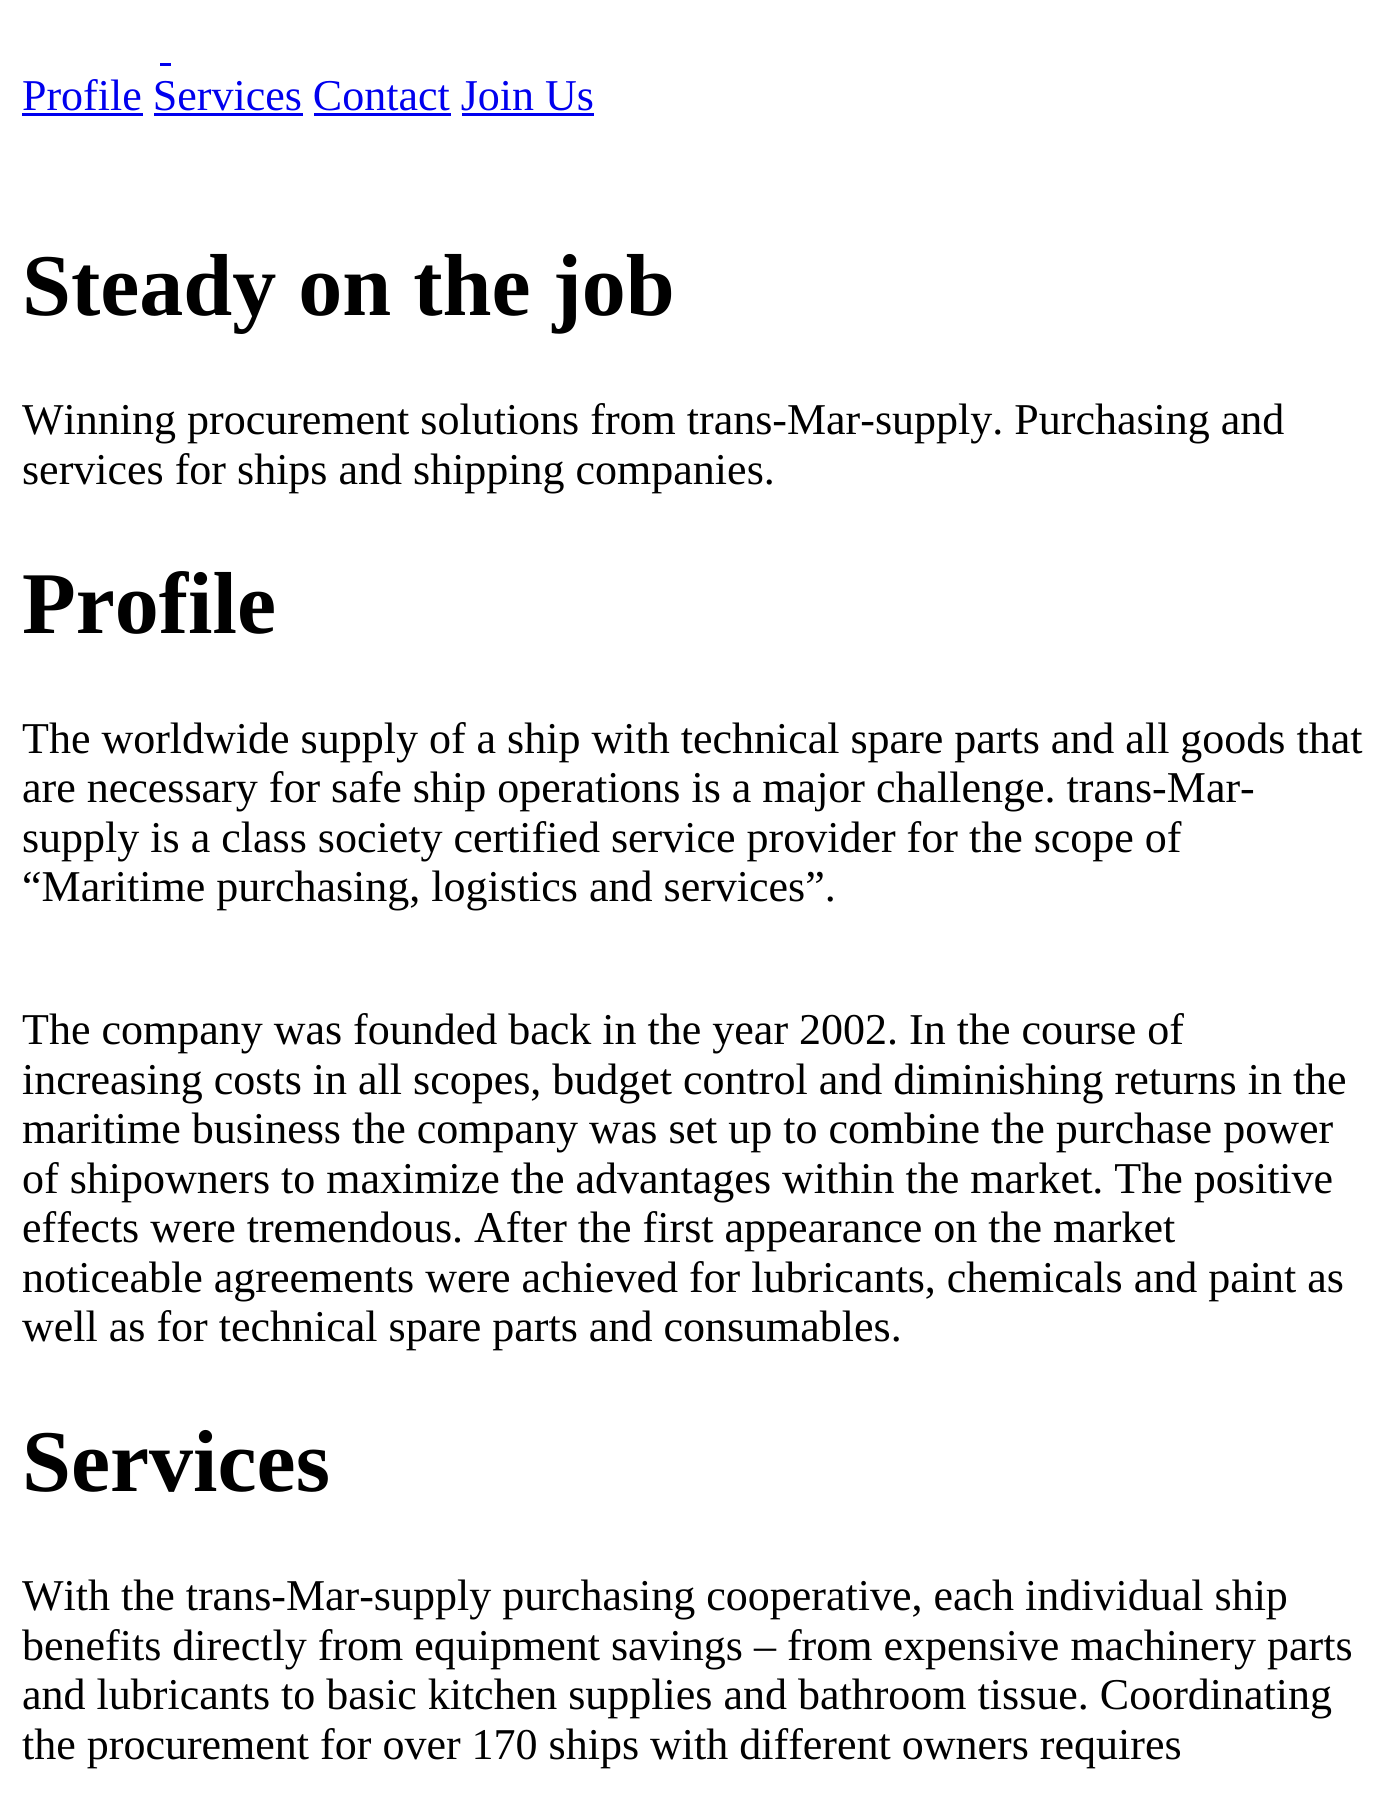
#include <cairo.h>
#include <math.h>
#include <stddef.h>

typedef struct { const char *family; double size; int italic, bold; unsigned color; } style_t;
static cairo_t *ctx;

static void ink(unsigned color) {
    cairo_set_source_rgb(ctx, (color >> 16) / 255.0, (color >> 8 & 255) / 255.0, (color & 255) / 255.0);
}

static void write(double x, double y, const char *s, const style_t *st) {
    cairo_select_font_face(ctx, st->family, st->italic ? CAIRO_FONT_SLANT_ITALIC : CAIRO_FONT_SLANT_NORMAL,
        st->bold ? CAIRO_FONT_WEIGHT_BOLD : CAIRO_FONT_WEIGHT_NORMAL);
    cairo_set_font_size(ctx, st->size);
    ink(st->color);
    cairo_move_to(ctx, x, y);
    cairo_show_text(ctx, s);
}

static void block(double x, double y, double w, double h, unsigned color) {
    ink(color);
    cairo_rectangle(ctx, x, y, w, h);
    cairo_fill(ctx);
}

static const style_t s1 = {"Liberation Serif", 44, 0, 0, 0x0000ee};
static const style_t s2 = {"Liberation Serif", 88, 0, 1, 0x000000};
static const style_t s3 = {"Liberation Serif", 44, 0, 0, 0x000000};

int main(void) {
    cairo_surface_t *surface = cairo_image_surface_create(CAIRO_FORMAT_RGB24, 1388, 1794);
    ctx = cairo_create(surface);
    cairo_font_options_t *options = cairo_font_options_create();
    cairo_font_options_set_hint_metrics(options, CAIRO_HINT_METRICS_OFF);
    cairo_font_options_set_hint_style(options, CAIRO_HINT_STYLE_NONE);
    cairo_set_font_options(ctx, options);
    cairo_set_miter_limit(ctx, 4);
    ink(0xffffff);
    cairo_paint(ctx);
    block(160, 63, 11, 3, 0x0000ee);
    write(22, 110, "Profile Services Contact Join Us", &s1);
    block(22, 113, 121, 3, 0x0000ee);
    block(154, 113, 149, 3, 0x0000ee);
    block(314, 113, 137, 3, 0x0000ee);
    block(462, 113, 132, 3, 0x0000ee);
    write(22, 315, "Steady on the job", &s2);
    write(22, 434, "Winning procurement solutions from trans-Mar-supply. Purchasing and", &s3);
    write(22, 484, "services for ships and shipping companies.", &s3);
    write(22, 633, "Profile", &s2);
    write(22, 753, "The worldwide supply of a ship with technical spare parts and all goods that", &s3);
    write(22, 802, "are necessary for safe ship operations is a major challenge. trans-Mar-", &s3);
    write(22, 852, "supply is a class society certified service provider for the scope of", &s3);
    write(22, 901, "“Maritime purchasing, logistics and services”.", &s3);
    write(22, 1044, "The company was founded back in the year 2002. In the course of", &s3);
    write(22, 1094, "increasing costs in all scopes, budget control and diminishing returns in the", &s3);
    write(22, 1143, "maritime business the company was set up to combine the purchase power", &s3);
    write(22, 1193, "of shipowners to maximize the advantages within the market. The positive", &s3);
    write(22, 1242, "effects were tremendous. After the first appearance on the market", &s3);
    write(22, 1292, "noticeable agreements were achieved for lubricants, chemicals and paint as", &s3);
    write(22, 1341, "well as for technical spare parts and consumables.", &s3);
    write(22, 1491, "Services", &s2);
    write(22, 1610, "With the trans-Mar-supply purchasing cooperative, each individual ship", &s3);
    write(22, 1660, "benefits directly from equipment savings – from expensive machinery parts", &s3);
    write(22, 1709, "and lubricants to basic kitchen supplies and bathroom tissue. Coordinating", &s3);
    write(22, 1759, "the procurement for over 170 ships with different owners requires", &s3);
    cairo_surface_write_to_png(surface, "screenshot.png");
    cairo_font_options_destroy(options);
    cairo_destroy(ctx);
    cairo_surface_destroy(surface);
    return 0;
}
